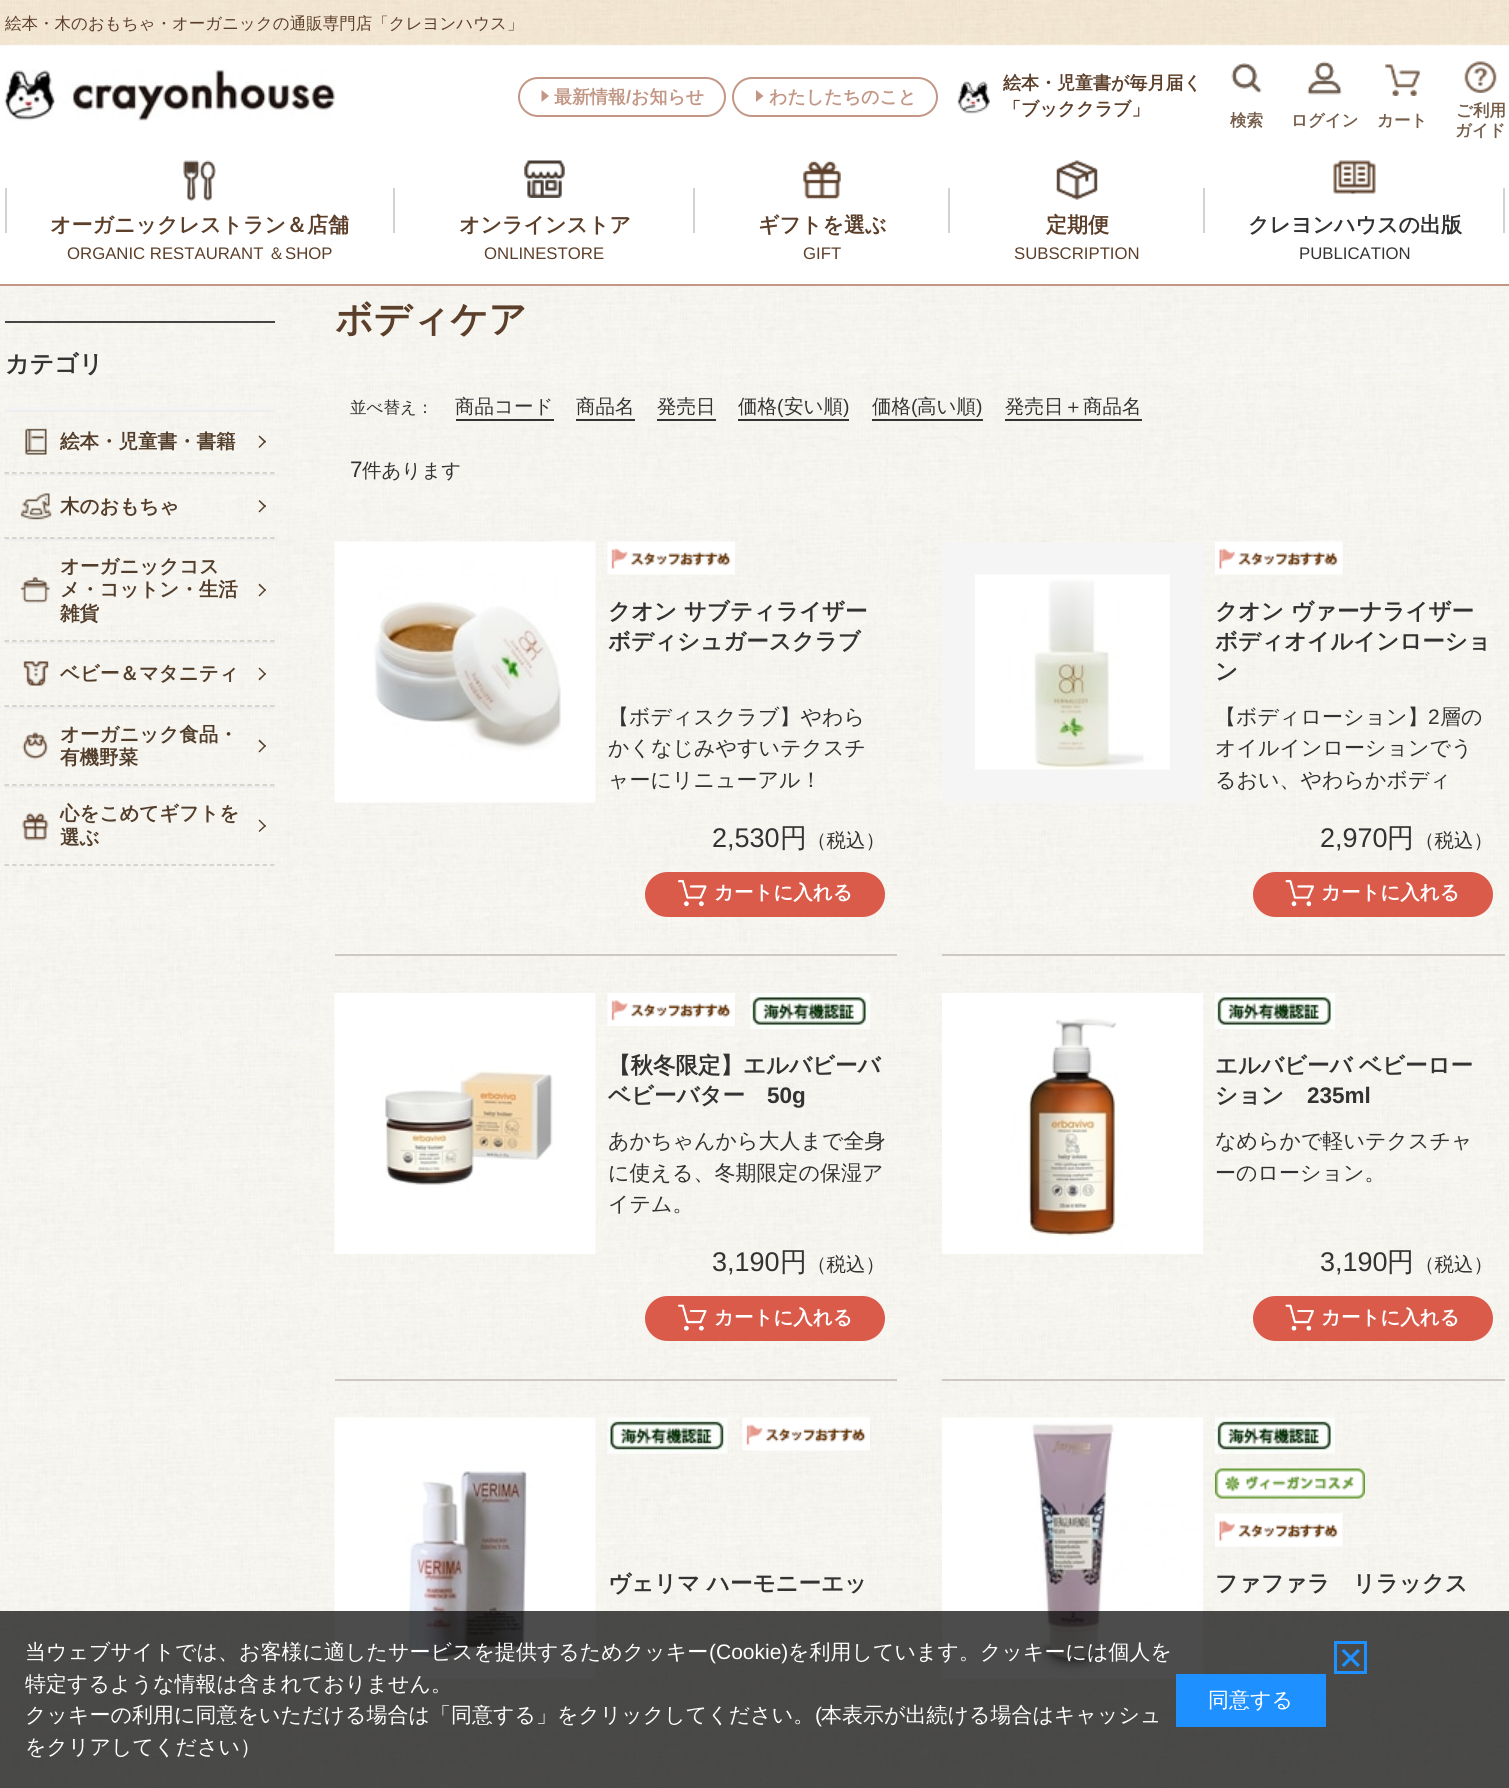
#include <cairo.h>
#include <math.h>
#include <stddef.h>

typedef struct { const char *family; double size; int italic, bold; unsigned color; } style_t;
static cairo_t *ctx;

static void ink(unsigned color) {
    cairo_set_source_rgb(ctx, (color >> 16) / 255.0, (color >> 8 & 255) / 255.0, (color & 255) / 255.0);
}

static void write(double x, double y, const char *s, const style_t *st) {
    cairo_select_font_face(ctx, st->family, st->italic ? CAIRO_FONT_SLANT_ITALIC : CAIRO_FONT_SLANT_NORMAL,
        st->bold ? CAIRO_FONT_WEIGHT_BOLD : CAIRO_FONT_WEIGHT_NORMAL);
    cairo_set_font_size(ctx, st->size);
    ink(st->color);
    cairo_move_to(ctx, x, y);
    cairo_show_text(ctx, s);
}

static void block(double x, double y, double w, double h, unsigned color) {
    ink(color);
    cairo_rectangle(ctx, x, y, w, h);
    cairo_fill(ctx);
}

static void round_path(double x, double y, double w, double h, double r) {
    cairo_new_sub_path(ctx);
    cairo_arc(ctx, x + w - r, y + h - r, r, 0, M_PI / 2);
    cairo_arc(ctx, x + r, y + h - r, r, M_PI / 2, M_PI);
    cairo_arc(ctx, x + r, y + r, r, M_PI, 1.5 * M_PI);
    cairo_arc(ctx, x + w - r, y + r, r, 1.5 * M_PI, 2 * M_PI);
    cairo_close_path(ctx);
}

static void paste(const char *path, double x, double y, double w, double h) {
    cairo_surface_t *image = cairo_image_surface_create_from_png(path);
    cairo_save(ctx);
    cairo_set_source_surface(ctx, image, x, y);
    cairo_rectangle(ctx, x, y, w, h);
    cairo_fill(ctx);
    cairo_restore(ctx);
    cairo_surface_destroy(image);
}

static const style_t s1 = {"WenQuanYi Zen Hei Medium", 16.5, 0, 0, 0x5c3f2a};
static const style_t s2 = {"WenQuanYi Zen Hei", 18, 0, 1, 0xc39786};
static const style_t s3 = {"Liberation Sans", 18, 0, 1, 0xc39786};
static const style_t s4 = {"WenQuanYi Zen Hei", 18, 0, 1, 0x5c3f2a};
static const style_t s5 = {"WenQuanYi Zen Hei", 16.5, 0, 1, 0x755d4a};
static const style_t s6 = {"WenQuanYi Zen Hei", 21, 0, 1, 0x5c3f2a};
static const style_t s7 = {"Liberation Sans", 16.75, 0, 0, 0x5c3f2a};
static const style_t s8 = {"WenQuanYi Zen Hei Medium", 16.75, 0, 0, 0x5c3f2a};
static const style_t s9 = {"WenQuanYi Zen Hei", 21, 0, 1, 0x333333};
static const style_t s10 = {"Liberation Sans", 16.75, 0, 0, 0x333333};
static const style_t s11 = {"WenQuanYi Zen Hei", 24, 0, 1, 0x333333};
static const style_t s12 = {"WenQuanYi Zen Hei", 19.5, 0, 1, 0x533e2b};
static const style_t s13 = {"WenQuanYi Zen Hei", 37.5, 0, 1, 0x5c3f2a};
static const style_t s14 = {"WenQuanYi Zen Hei Medium", 16.5, 0, 0, 0x333333};
static const style_t s15 = {"WenQuanYi Zen Hei Medium", 19.5, 0, 0, 0x333333};
static const style_t s16 = {"Liberation Sans", 19.5, 0, 0, 0x333333};
static const style_t s17 = {"Liberation Sans", 22.5, 0, 0, 0x333333};
static const style_t s18 = {"WenQuanYi Zen Hei", 22.5, 0, 1, 0x333333};
static const style_t s19 = {"WenQuanYi Zen Hei Medium", 21, 0, 0, 0x333333};
static const style_t s20 = {"Liberation Sans", 27, 0, 0, 0x333333};
static const style_t s21 = {"WenQuanYi Zen Hei Medium", 27, 0, 0, 0x333333};
static const style_t s22 = {"WenQuanYi Zen Hei", 19.5, 0, 1, 0xffffff};
static const style_t s23 = {"Liberation Sans", 21, 0, 0, 0x333333};
static const style_t s24 = {"Liberation Sans", 22.5, 0, 1, 0x333333};
static const style_t s25 = {"WenQuanYi Zen Hei Medium", 21, 0, 0, 0xffffff};
static const style_t s26 = {"Liberation Sans", 21, 0, 0, 0xffffff};

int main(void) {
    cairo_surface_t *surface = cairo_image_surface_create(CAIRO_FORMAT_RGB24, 1509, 1788);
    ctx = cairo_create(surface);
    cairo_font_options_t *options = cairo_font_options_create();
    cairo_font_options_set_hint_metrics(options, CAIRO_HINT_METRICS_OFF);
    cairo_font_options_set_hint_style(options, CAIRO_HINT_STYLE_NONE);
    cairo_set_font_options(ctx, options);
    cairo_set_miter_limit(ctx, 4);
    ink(0xffffff);
    cairo_paint(ctx);
    paste("pic1.png", 0, 286, 1509, 1502);
    block(0, 284, 1509, 2, 0xc39786);
    paste("pic2.png", 0, 0, 1509, 46);
    write(5, 29, "絵本・木のおもちゃ・オーガニックの通販専門店「クレヨンハウス」", &s1);
    paste("pic3.png", 4, 69, 331, 53);
    round_path(519, 78, 206, 38, 19);
    ink(0xc39786);
    cairo_stroke(ctx);
    cairo_new_path(ctx);
    cairo_move_to(ctx, 541.5, 102);
    cairo_line_to(ctx, 541.5, 90);
    cairo_line_to(ctx, 549, 96);
    cairo_close_path(ctx);
    cairo_fill(ctx);
    write(554, 103, "最新情報", &s2);
    write(626, 103, "/", &s3);
    write(631, 103, "お知らせ", &s2);
    round_path(733, 78, 204, 38, 19);
    cairo_stroke(ctx);
    cairo_new_path(ctx);
    cairo_move_to(ctx, 756, 102);
    cairo_line_to(ctx, 756, 90);
    cairo_line_to(ctx, 763.5, 96);
    cairo_close_path(ctx);
    cairo_fill(ctx);
    write(769, 103, "わたしたちのこと", &s2);
    paste("pic4.png", 957, 81, 33, 33);
    write(1003, 89, "絵本・児童書が毎月届く", &s4);
    write(1003, 115, "「ブッククラブ」", &s4);
    paste("pic5.png", 1231, 63, 31, 30);
    write(1230, 126, "検索", &s5);
    paste("pic6.png", 1307, 61, 35, 34);
    write(1291, 126, "ログイン", &s5);
    paste("pic7.png", 1385, 64, 35, 32);
    write(1377, 126, "カート", &s5);
    paste("pic8.png", 1464, 61, 33, 32);
    write(1456, 116, "ご利用", &s5);
    write(1455, 136, "ガイド", &s5);
    paste("pic9.png", 183, 160, 33, 41);
    block(5, 188, 2, 45, 0xd2d2d2);
    write(50, 232, "オーガニックレストラン＆店舗", &s6);
    block(393, 188, 2, 45, 0xd2d2d2);
    write(67, 259, "ORGANIC RESTAURANT", &s7);
    write(268, 259, "＆", &s8);
    write(285, 259, "SHOP", &s7);
    paste("pic10.png", 524, 160, 41, 38);
    write(459, 232, "オンラインストア", &s6);
    block(693, 188, 2, 45, 0xd2d2d2);
    write(484, 259, "ONLINESTORE", &s7);
    paste("pic11.png", 803, 160, 38, 40);
    write(758, 232, "ギフトを選ぶ", &s6);
    block(948, 188, 2, 45, 0xd2d2d2);
    write(803, 259, "GIFT", &s7);
    paste("pic12.png", 1056, 160, 42, 40);
    write(1046, 232, "定期便", &s6);
    block(1203, 188, 2, 45, 0xd2d2d2);
    write(1014, 259, "SUBSCRIPTION", &s7);
    paste("pic13.png", 1333, 160, 43, 35);
    write(1248, 232, "クレヨンハウスの出版", &s9);
    block(1503, 188, 2, 45, 0xd2d2d2);
    write(1299, 259, "PUBLICATION", &s10);
    block(5, 321, 270, 2, 0x444444);
    block(5, 407, 270, 3, 0xf4f4f4);
    write(5, 372, "カテゴリ", &s11);
    block(5, 410, 270, 2, 0xeeeeee);
    cairo_new_path(ctx);
    cairo_move_to(ctx, 4.5, 473);
    cairo_line_to(ctx, 274.5, 473);
    ink(0xcdc8c3);
    cairo_set_line_width(ctx, 1.5);
    cairo_set_dash(ctx, (double[]){4.5, 3.09}, 2, 0);
    cairo_stroke(ctx);
    paste("pic14.png", 25, 428, 22, 27);
    write(60, 448, "絵本・児童書・書籍", &s12);
    cairo_new_path(ctx);
    cairo_move_to(ctx, 259.5, 435.5);
    cairo_line_to(ctx, 266, 441.5);
    cairo_line_to(ctx, 265, 443);
    cairo_line_to(ctx, 258.5, 436.5);
    cairo_close_path(ctx);
    cairo_fill(ctx);
    cairo_new_path(ctx);
    cairo_move_to(ctx, 265, 440.5);
    cairo_line_to(ctx, 266, 441.5);
    cairo_line_to(ctx, 259.5, 448);
    cairo_line_to(ctx, 258.5, 447);
    cairo_close_path(ctx);
    cairo_fill(ctx);
    block(5, 474, 270, 2, 0xeeeeee);
    cairo_new_path(ctx);
    cairo_move_to(ctx, 4.5, 538);
    cairo_line_to(ctx, 274.5, 538);
    ink(0xcdc8c3);
    cairo_stroke(ctx);
    paste("pic15.png", 20, 493, 32, 27);
    write(60, 513, "木のおもちゃ", &s12);
    cairo_new_path(ctx);
    cairo_move_to(ctx, 259.5, 500);
    cairo_line_to(ctx, 266, 506);
    cairo_line_to(ctx, 265, 507.5);
    cairo_line_to(ctx, 258.5, 501);
    cairo_close_path(ctx);
    cairo_fill(ctx);
    cairo_new_path(ctx);
    cairo_move_to(ctx, 265, 505);
    cairo_line_to(ctx, 266, 506);
    cairo_line_to(ctx, 259.5, 512.5);
    cairo_line_to(ctx, 258.5, 511.5);
    cairo_close_path(ctx);
    cairo_fill(ctx);
    block(5, 539, 270, 2, 0xeeeeee);
    cairo_new_path(ctx);
    cairo_move_to(ctx, 4.5, 641);
    cairo_line_to(ctx, 274.5, 641);
    ink(0xcdc8c3);
    cairo_stroke(ctx);
    paste("pic16.png", 20, 576, 30, 28);
    write(60, 573, "オーガニックコス", &s12);
    write(60, 596, "メ・コットン・生活", &s12);
    write(60, 620, "雑貨", &s12);
    cairo_new_path(ctx);
    cairo_move_to(ctx, 259.5, 583.5);
    cairo_line_to(ctx, 266, 590);
    cairo_line_to(ctx, 265, 591);
    cairo_line_to(ctx, 258.5, 585);
    cairo_close_path(ctx);
    cairo_fill(ctx);
    cairo_new_path(ctx);
    cairo_move_to(ctx, 265, 589);
    cairo_line_to(ctx, 266, 590);
    cairo_line_to(ctx, 259.5, 596.5);
    cairo_line_to(ctx, 258.5, 595.5);
    cairo_close_path(ctx);
    cairo_fill(ctx);
    block(5, 642, 270, 2, 0xeeeeee);
    cairo_new_path(ctx);
    cairo_move_to(ctx, 4.5, 706);
    cairo_line_to(ctx, 274.5, 706);
    ink(0xcdc8c3);
    cairo_stroke(ctx);
    paste("pic17.png", 23, 661, 26, 25);
    write(60, 680, "ベビー＆マタニティ", &s12);
    cairo_new_path(ctx);
    cairo_move_to(ctx, 259.5, 667.5);
    cairo_line_to(ctx, 266, 674);
    cairo_line_to(ctx, 265, 675);
    cairo_line_to(ctx, 258.5, 668.5);
    cairo_close_path(ctx);
    cairo_fill(ctx);
    cairo_new_path(ctx);
    cairo_move_to(ctx, 265, 673);
    cairo_line_to(ctx, 266, 674);
    cairo_line_to(ctx, 259.5, 680.5);
    cairo_line_to(ctx, 258.5, 679);
    cairo_close_path(ctx);
    cairo_fill(ctx);
    block(5, 707, 270, 2, 0xeeeeee);
    cairo_new_path(ctx);
    cairo_move_to(ctx, 4.5, 785);
    cairo_line_to(ctx, 274.5, 785);
    ink(0xcdc8c3);
    cairo_stroke(ctx);
    paste("pic18.png", 22, 731, 27, 29);
    write(60, 741, "オーガニック食品・", &s12);
    write(60, 764, "有機野菜", &s12);
    cairo_new_path(ctx);
    cairo_move_to(ctx, 259.5, 739.5);
    cairo_line_to(ctx, 266, 746);
    cairo_line_to(ctx, 265, 747);
    cairo_line_to(ctx, 258.5, 741);
    cairo_close_path(ctx);
    cairo_fill(ctx);
    cairo_new_path(ctx);
    cairo_move_to(ctx, 265, 745);
    cairo_line_to(ctx, 266, 746);
    cairo_line_to(ctx, 259.5, 752.5);
    cairo_line_to(ctx, 258.5, 751.5);
    cairo_close_path(ctx);
    cairo_fill(ctx);
    block(5, 786, 270, 2, 0xeeeeee);
    cairo_new_path(ctx);
    cairo_move_to(ctx, 4.5, 865);
    cairo_line_to(ctx, 274.5, 865);
    ink(0xcdc8c3);
    cairo_stroke(ctx);
    paste("pic19.png", 22, 812, 27, 29);
    write(60, 820, "心をこめてギフトを", &s12);
    write(60, 844, "選ぶ", &s12);
    cairo_new_path(ctx);
    cairo_move_to(ctx, 259.5, 819.5);
    cairo_line_to(ctx, 266, 826);
    cairo_line_to(ctx, 265, 827);
    cairo_line_to(ctx, 258.5, 820.5);
    cairo_close_path(ctx);
    cairo_fill(ctx);
    cairo_new_path(ctx);
    cairo_move_to(ctx, 265, 825);
    cairo_line_to(ctx, 266, 826);
    cairo_line_to(ctx, 259.5, 832);
    cairo_line_to(ctx, 258.5, 831);
    cairo_close_path(ctx);
    cairo_fill(ctx);
    write(335, 332, "ボディケア", &s13);
    write(350, 413, "並べ替え：", &s14);
    write(455, 413, "商品コード", &s15);
    block(456, 419, 98, 2, 0x333333);
    write(576, 413, "商品名", &s15);
    block(576, 419, 59, 2, 0x333333);
    write(657, 413, "発売日", &s15);
    block(657, 419, 59, 2, 0x333333);
    write(738, 413, "価格", &s15);
    write(777, 413, "(", &s16);
    block(738, 419, 111, 2, 0x333333);
    write(784, 413, "安い順", &s15);
    write(843, 413, ")", &s16);
    write(872, 413, "価格", &s15);
    write(911, 413, "(", &s16);
    block(872, 419, 111, 2, 0x333333);
    write(917, 413, "高い順", &s15);
    write(976, 413, ")", &s16);
    write(1005, 413, "発売日＋商品名", &s15);
    block(1005, 419, 137, 2, 0x333333);
    write(350, 477, "7", &s17);
    write(362, 477, "件あります", &s15);
    block(335, 954, 562, 2, 0xcdc8c3);
    block(335, 542, 261, 261, 0xf5f5f5);
    paste("pic20.png", 334, 541, 262, 262);
    paste("pic21.png", 607, 541, 128, 34);
    write(608, 619, "クオン サブティライザー", &s18);
    write(608, 649, "ボディシュガースクラブ", &s18);
    write(608, 724, "【ボディスクラブ】やわら", &s19);
    write(608, 755, "かくなじみやすいテクスチ", &s19);
    write(608, 787, "ャーにリニューアル！", &s19);
    write(712, 847, "2,530", &s20);
    write(780, 847, "円", &s21);
    write(807, 847, "（税込）", &s15);
    ink(0xda5b4a);
    round_path(645, 872, 240, 45, 22.5);
    cairo_fill(ctx);
    paste("pic22.png", 678, 879, 29, 28);
    write(714, 899, "カートに入れる", &s22);
    block(942, 954, 563, 2, 0xcdc8c3);
    block(942, 542, 261, 261, 0xf5f5f5);
    paste("pic23.png", 975, 574, 195, 196);
    paste("pic24.png", 1215, 541, 128, 34);
    write(1215, 619, "クオン ヴァーナライザー", &s18);
    write(1215, 649, "ボディオイルインローショ", &s18);
    write(1215, 679, "ン", &s18);
    write(1215, 724, "【ボディローション】", &s19);
    write(1428, 724, "2", &s23);
    write(1440, 724, "層の", &s19);
    write(1215, 755, "オイルインローションでう", &s19);
    write(1215, 787, "るおい、やわらかボディ", &s19);
    write(1320, 847, "2,970", &s20);
    write(1387, 847, "円", &s21);
    write(1415, 847, "（税込）", &s15);
    ink(0xda5b4a);
    round_path(1253, 872, 240, 45, 22.5);
    cairo_fill(ctx);
    paste("pic25.png", 1285, 879, 29, 28);
    write(1321, 899, "カートに入れる", &s22);
    block(335, 1379, 562, 2, 0xcdc8c3);
    block(595, 993, 1, 261, 0xf5f5f5);
    paste("pic26.png", 334, 993, 262, 261);
    paste("pic27.png", 607, 993, 128, 33);
    paste("pic28.png", 750, 993, 120, 36);
    write(608, 1073, "【秋冬限定】エルバビーバ", &s18);
    write(608, 1103, "ベビーバター", &s18);
    write(767, 1103, "50g", &s24);
    write(608, 1148, "あかちゃんから大人まで全身", &s19);
    write(608, 1180, "に使える、冬期限定の保湿ア", &s19);
    write(608, 1211, "イテム。", &s19);
    write(712, 1271, "3,190", &s20);
    write(780, 1271, "円", &s21);
    write(807, 1271, "（税込）", &s15);
    ink(0xda5b4a);
    round_path(645, 1296, 240, 45, 22.5);
    cairo_fill(ctx);
    paste("pic29.png", 678, 1304, 29, 27);
    write(714, 1324, "カートに入れる", &s22);
    block(942, 1379, 563, 2, 0xcdc8c3);
    paste("pic30.png", 942, 993, 261, 261);
    paste("pic31.png", 1215, 993, 120, 36);
    write(1215, 1073, "エルバビーバ", &s18);
    write(1359, 1073, "ベビーロー", &s18);
    write(1215, 1103, "ション", &s18);
    write(1307, 1103, "235ml", &s24);
    write(1215, 1148, "なめらかで軽いテクスチャ", &s19);
    write(1215, 1180, "ーのローション。", &s19);
    write(1320, 1271, "3,190", &s20);
    write(1387, 1271, "円", &s21);
    write(1415, 1271, "（税込）", &s15);
    ink(0xda5b4a);
    round_path(1253, 1296, 240, 45, 22.5);
    cairo_fill(ctx);
    paste("pic32.png", 1285, 1304, 29, 27);
    write(1321, 1324, "カートに入れる", &s22);
    block(335, 1418, 261, 261, 0xf5f5f5);
    paste("pic33.png", 334, 1417, 262, 262);
    paste("pic34.png", 607, 1417, 121, 37);
    paste("pic35.png", 742, 1417, 128, 34);
    write(608, 1591, "ヴェリマ ハーモニーエッ", &s18);
    block(942, 1678, 234, 1, 0xf5f5f5);
    paste("pic36.png", 942, 1417, 261, 262);
    paste("pic37.png", 1215, 1417, 120, 37);
    paste("pic38.png", 1215, 1468, 150, 31);
    paste("pic39.png", 1215, 1513, 128, 34);
    write(1215, 1591, "ファファラ　リラックス", &s18);
    cairo_set_source_rgba(ctx, 0, 0, 0, 0.7);
    cairo_rectangle(ctx, 0, 1611, 1509, 177);
    cairo_fill(ctx);
    write(25, 1659, "当ウェブサイトでは、お客様に適したサービスを提供するためクッキー", &s25);
    write(709, 1659, "(Cookie)", &s26);
    write(788, 1659, "を利用しています。クッキーには個人を", &s25);
    write(25, 1691, "特定するような情報は含まれておりません。", &s25);
    write(25, 1722, "クッキーの利用に同意をいただける場合は「同意する」をクリックしてください。", &s25);
    write(815, 1722, "(", &s26);
    write(821, 1722, "本表示が出続ける場合はキャッシュ", &s25);
    write(25, 1754, "をクリアしてください）", &s25);
    cairo_rectangle(ctx, 1335.5, 1642.5, 30, 30);
    ink(0x1e90ff);
    cairo_set_line_width(ctx, 3);
    cairo_set_dash(ctx, NULL, 0, 0);
    cairo_stroke(ctx);
    cairo_new_path(ctx);
    cairo_move_to(ctx, 1341.5, 1665);
    cairo_line_to(ctx, 1357.5, 1649);
    cairo_line_to(ctx, 1360, 1651);
    cairo_line_to(ctx, 1344, 1667);
    cairo_close_path(ctx);
    cairo_fill(ctx);
    cairo_new_path(ctx);
    cairo_move_to(ctx, 1344, 1649);
    cairo_line_to(ctx, 1360, 1665);
    cairo_line_to(ctx, 1357.5, 1667);
    cairo_line_to(ctx, 1341.5, 1651);
    cairo_close_path(ctx);
    cairo_fill(ctx);
    block(1176, 1674, 150, 53, 0x1e90ff);
    write(1208, 1707, "同意する", &s25);
    cairo_surface_write_to_png(surface, "screenshot.png");
    cairo_font_options_destroy(options);
    cairo_destroy(ctx);
    cairo_surface_destroy(surface);
    return 0;
}
